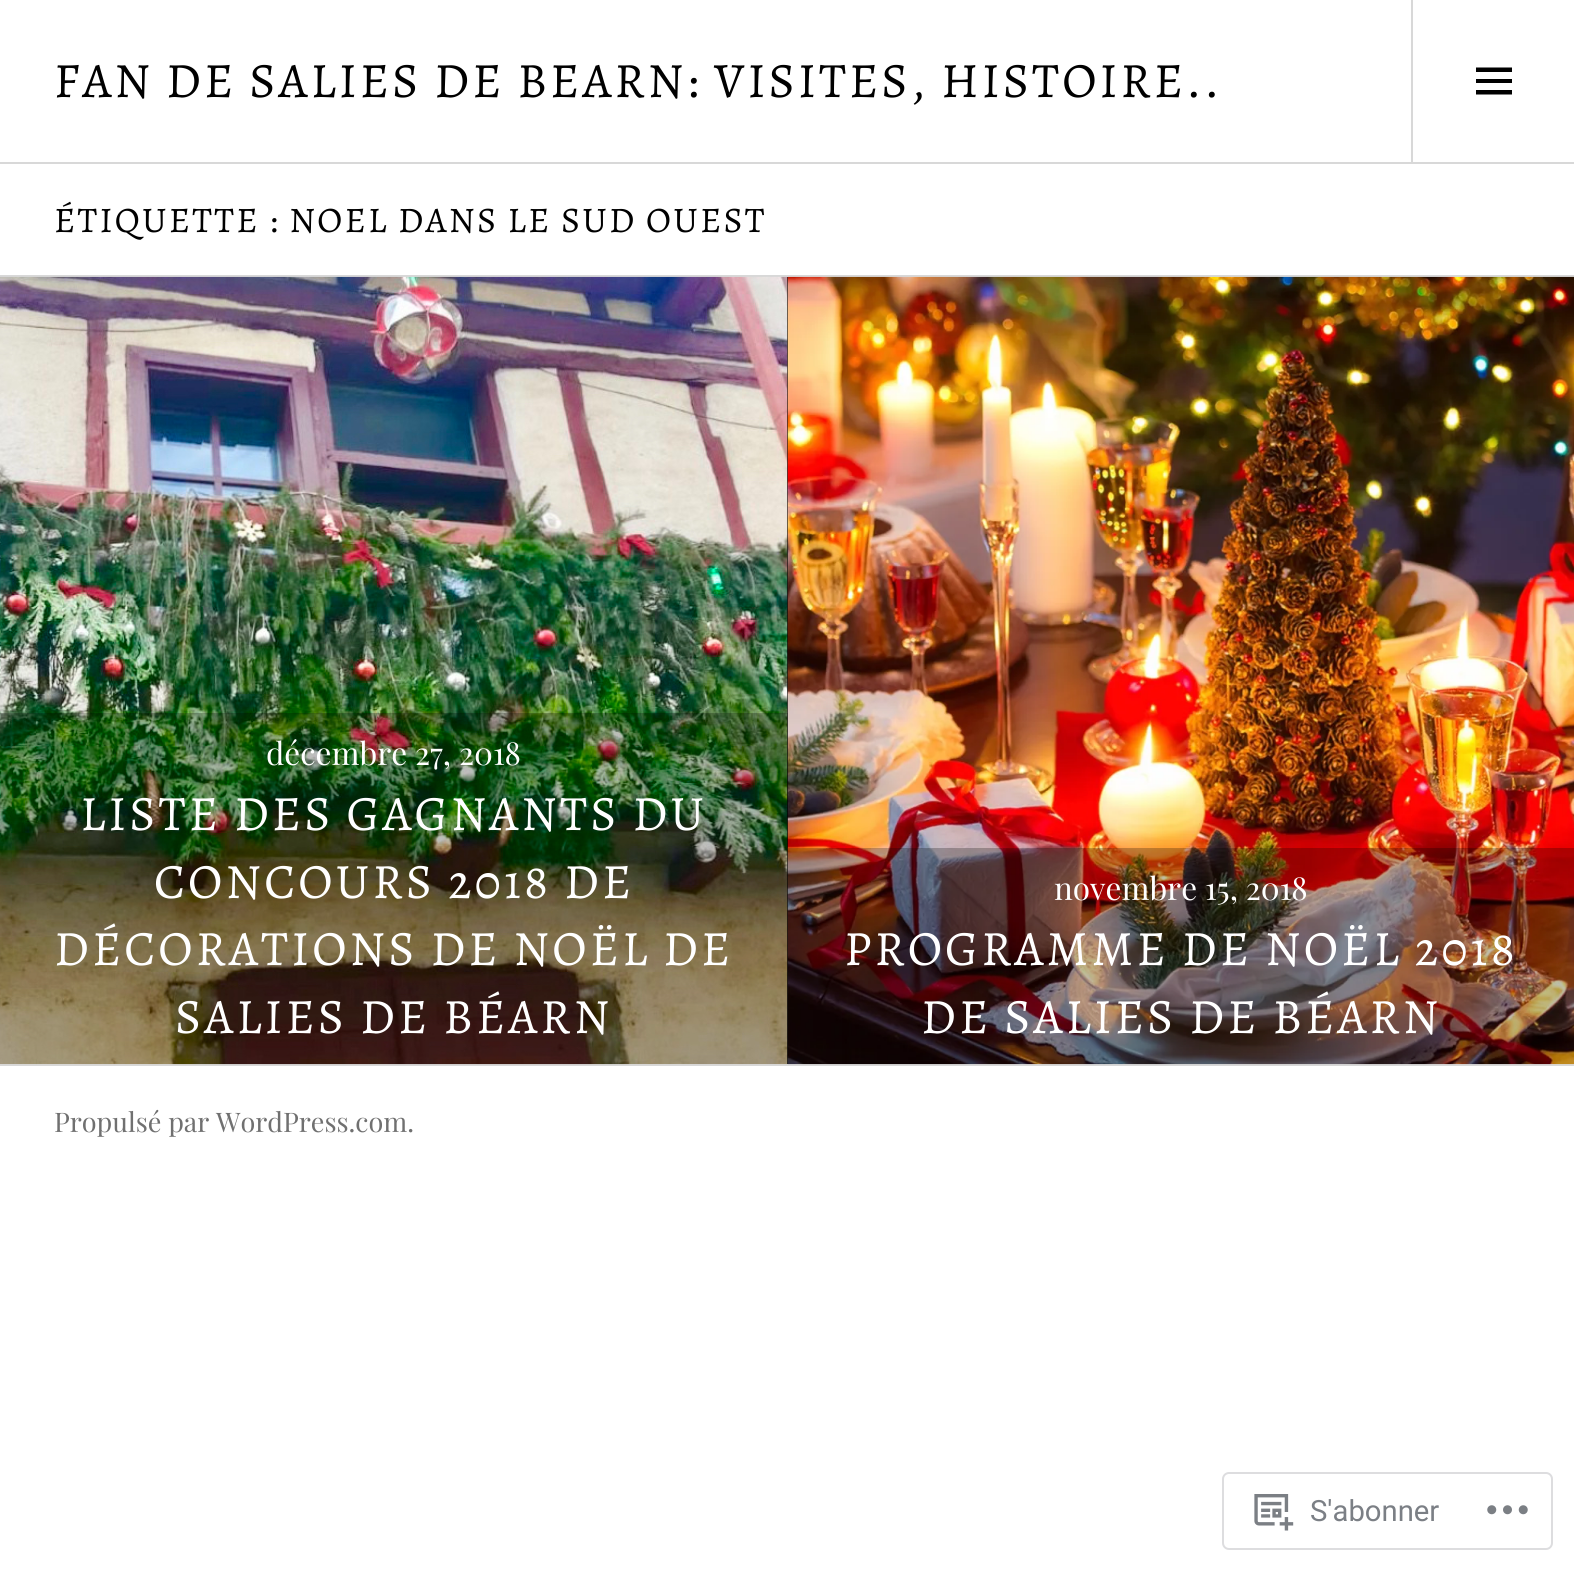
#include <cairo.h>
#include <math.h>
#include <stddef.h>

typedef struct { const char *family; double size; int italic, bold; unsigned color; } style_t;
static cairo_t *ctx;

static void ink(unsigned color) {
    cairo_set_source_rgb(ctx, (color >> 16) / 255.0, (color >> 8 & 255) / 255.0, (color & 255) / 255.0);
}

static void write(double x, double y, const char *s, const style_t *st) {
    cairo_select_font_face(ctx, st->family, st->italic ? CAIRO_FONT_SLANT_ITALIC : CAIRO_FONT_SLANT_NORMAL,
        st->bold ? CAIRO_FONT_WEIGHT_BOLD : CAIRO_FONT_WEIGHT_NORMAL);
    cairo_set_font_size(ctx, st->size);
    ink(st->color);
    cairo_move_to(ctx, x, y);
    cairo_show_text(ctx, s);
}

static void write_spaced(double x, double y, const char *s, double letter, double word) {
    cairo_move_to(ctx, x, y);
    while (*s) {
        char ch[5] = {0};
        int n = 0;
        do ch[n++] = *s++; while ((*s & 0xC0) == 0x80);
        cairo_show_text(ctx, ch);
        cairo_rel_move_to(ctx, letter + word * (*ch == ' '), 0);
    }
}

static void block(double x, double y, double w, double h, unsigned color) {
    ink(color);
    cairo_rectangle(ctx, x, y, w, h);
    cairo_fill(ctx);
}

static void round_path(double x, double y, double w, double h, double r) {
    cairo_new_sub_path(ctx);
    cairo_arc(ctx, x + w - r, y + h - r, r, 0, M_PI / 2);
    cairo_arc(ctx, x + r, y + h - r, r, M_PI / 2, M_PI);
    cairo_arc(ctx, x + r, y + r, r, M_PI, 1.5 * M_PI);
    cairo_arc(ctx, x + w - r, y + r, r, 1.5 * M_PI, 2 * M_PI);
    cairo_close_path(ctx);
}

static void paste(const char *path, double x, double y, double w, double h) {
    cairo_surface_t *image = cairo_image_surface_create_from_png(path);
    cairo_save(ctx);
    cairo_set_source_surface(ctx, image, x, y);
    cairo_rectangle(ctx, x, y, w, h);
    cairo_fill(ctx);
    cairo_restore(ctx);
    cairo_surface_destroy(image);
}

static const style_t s1 = {"Playfair Display", 31.5, 0, 0, 0xffffff};
static const style_t s2 = {"Playfair Display", 27, 0, 0, 0x707070};
static const style_t s3 = {"Roboto", 29.25, 0, 0, 0x7b7f85};

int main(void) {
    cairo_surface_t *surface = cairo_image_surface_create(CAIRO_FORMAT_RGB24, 1574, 1572);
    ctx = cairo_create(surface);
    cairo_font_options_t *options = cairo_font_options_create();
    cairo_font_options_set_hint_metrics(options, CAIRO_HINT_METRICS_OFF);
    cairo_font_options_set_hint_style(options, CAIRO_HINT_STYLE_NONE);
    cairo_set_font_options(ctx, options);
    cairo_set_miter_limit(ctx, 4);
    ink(0xffffff);
    cairo_paint(ctx);
    block(0, 162, 1574, 2, 0xd8d8d8);
    cairo_select_font_face(ctx, "Alegreya", CAIRO_FONT_SLANT_NORMAL, CAIRO_FONT_WEIGHT_NORMAL);
    cairo_set_font_size(ctx, 49.5);
    ink(0x000000);
    write_spaced(54, 97, "FAN DE SALIES DE BEARN: VISITES, HISTOIRE..", 3.1, 0);
    block(1411, 0, 2, 162, 0xd8d8d8);
    ink(0x000000);
    cairo_new_path(ctx);
    cairo_move_to(ctx, 1476, 94.5);
    cairo_line_to(ctx, 1476, 90);
    cairo_line_to(ctx, 1512, 90);
    cairo_line_to(ctx, 1512, 94.5);
    cairo_close_path(ctx);
    cairo_move_to(ctx, 1476, 67.5);
    cairo_line_to(ctx, 1512, 67.5);
    cairo_line_to(ctx, 1512, 72);
    cairo_line_to(ctx, 1476, 72);
    cairo_close_path(ctx);
    cairo_move_to(ctx, 1476, 83);
    cairo_line_to(ctx, 1476, 79);
    cairo_line_to(ctx, 1512, 79);
    cairo_line_to(ctx, 1512, 83);
    cairo_close_path(ctx);
    cairo_fill(ctx);
    block(0, 275, 1574, 2, 0xd8d8d8);
    cairo_set_font_size(ctx, 36);
    ink(0x000000);
    write_spaced(54, 232, "ÉTIQUETTE : NOEL DANS LE SUD OUEST", 2.25, 0);
    block(787, 277, 1, 787, 0x000000);
    block(0, 1064, 1574, 2, 0xd8d8d8);
    paste("pic1.png", 0, 276, 788, 789);
    paste("pic2.png", 787, 276, 787, 789);
    cairo_set_source_rgba(ctx, 0, 0, 0, 0.25);
    cairo_rectangle(ctx, 0, 713, 788, 351);
    cairo_fill(ctx);
    write(266, 765, "décembre 27, 2018", &s1);
    cairo_select_font_face(ctx, "Alegreya", CAIRO_FONT_SLANT_NORMAL, CAIRO_FONT_WEIGHT_NORMAL);
    cairo_set_font_size(ctx, 49.5);
    write_spaced(80, 830, "LISTE DES GAGNANTS DU", 3.1, 0);
    write_spaced(154, 898, "CONCOURS 2018 DE", 3.1, 0);
    write_spaced(54, 965, "DÉCORATIONS DE NOËL DE", 3.1, 0);
    write_spaced(175, 1033, "SALIES DE BÉARN", 3.1, 0);
    cairo_set_source_rgba(ctx, 0, 0, 0, 0.25);
    cairo_rectangle(ctx, 788, 848, 786, 216);
    cairo_fill(ctx);
    write(1054, 900, "novembre 15, 2018", &s1);
    cairo_select_font_face(ctx, "Alegreya", CAIRO_FONT_SLANT_NORMAL, CAIRO_FONT_WEIGHT_NORMAL);
    cairo_set_font_size(ctx, 49.5);
    write_spaced(844, 965, "PROGRAMME DE NOËL 2018", 3.1, 0);
    write_spaced(921, 1033, "DE SALIES DE BÉARN", 3.1, 0);
    write(54, 1132, "Propulsé par WordPress.com.", &s2);
    round_path(1223, 1473, 329, 76, 6);
    ink(0xdddddf);
    cairo_stroke(ctx);
    paste("pic3.png", 1254, 1494, 40, 37);
    write(1310, 1521, "S'abonner", &s3);
    paste("pic4.png", 1487, 1505, 41, 10);
    cairo_surface_write_to_png(surface, "screenshot.png");
    cairo_font_options_destroy(options);
    cairo_destroy(ctx);
    cairo_surface_destroy(surface);
    return 0;
}
